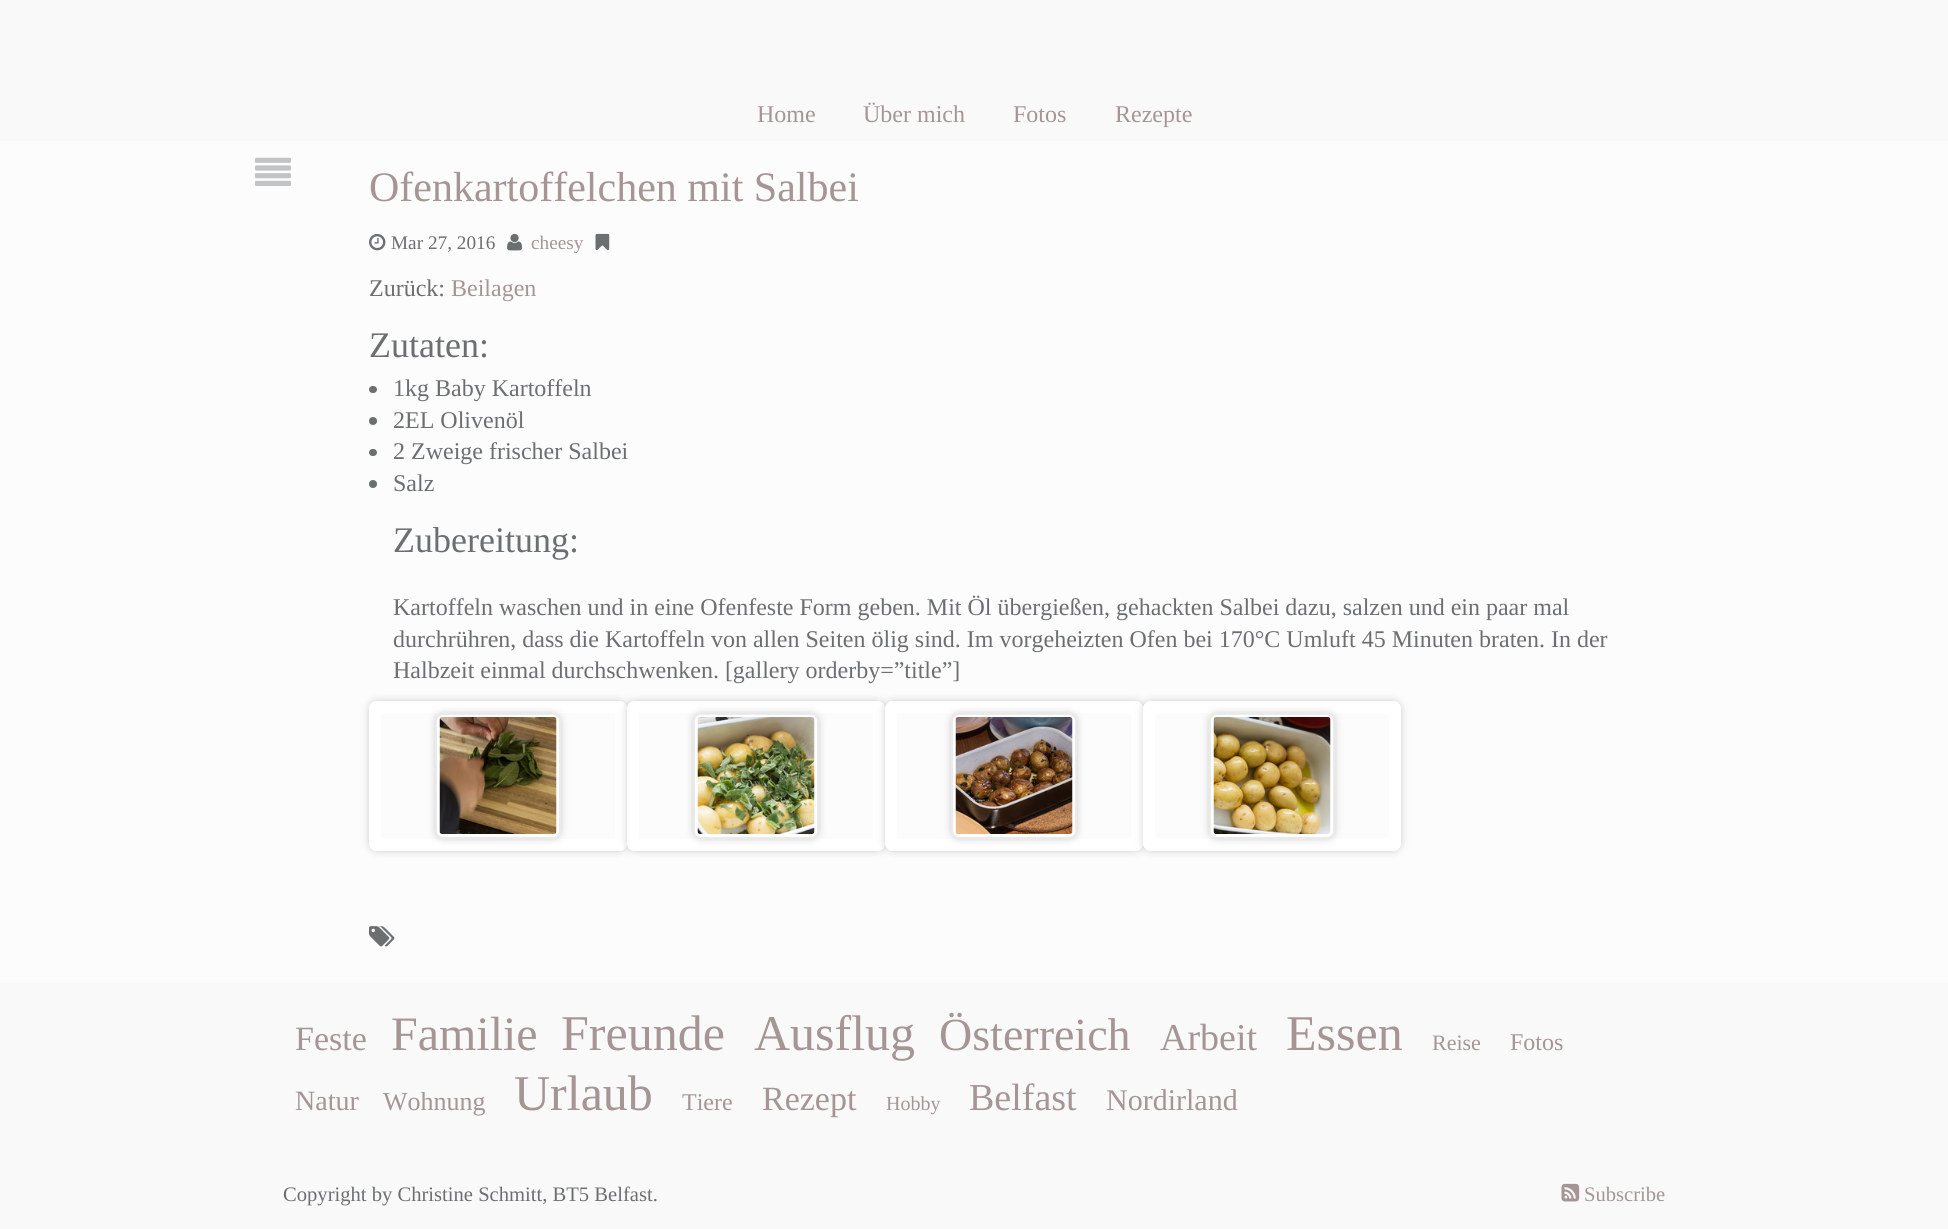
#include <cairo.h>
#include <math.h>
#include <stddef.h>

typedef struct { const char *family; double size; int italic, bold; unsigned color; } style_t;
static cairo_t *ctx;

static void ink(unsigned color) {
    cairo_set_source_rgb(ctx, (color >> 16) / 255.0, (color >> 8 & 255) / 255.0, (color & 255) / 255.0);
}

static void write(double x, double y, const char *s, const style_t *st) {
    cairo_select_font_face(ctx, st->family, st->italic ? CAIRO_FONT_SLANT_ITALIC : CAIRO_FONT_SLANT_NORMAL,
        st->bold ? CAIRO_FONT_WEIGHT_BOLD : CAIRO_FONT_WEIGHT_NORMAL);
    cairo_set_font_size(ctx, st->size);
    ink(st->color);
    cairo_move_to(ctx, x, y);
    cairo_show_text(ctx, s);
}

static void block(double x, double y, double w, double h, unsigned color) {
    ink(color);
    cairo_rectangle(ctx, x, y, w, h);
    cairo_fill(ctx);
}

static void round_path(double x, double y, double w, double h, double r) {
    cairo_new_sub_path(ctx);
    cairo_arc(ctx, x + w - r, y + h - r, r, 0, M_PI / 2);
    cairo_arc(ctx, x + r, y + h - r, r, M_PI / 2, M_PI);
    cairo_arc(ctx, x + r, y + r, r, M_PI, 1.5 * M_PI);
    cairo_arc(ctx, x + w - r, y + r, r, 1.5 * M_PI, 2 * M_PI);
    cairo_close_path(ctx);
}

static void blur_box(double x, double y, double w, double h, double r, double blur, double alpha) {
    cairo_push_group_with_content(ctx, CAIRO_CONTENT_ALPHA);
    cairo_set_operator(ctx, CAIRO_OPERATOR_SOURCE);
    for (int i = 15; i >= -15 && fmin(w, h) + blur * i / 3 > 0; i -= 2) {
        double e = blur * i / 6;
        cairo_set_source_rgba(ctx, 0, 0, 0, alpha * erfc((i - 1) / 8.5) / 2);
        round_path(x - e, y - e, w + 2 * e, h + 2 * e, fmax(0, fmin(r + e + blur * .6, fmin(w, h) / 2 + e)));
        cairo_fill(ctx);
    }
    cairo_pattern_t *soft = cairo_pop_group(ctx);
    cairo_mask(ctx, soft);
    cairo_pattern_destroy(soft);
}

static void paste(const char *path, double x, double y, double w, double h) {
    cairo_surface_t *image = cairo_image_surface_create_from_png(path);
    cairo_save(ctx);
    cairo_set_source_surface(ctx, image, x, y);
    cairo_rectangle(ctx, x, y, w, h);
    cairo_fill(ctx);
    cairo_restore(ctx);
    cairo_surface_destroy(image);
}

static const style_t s1 = {"Liberation Serif", 24, 0, 0, 0xa59595};
static const style_t s2 = {"Liberation Serif", 42, 0, 0, 0xa59595};
static const style_t s3 = {"Liberation Serif", 19.25, 0, 0, 0x6c6f70};
static const style_t s4 = {"Liberation Serif", 19.25, 0, 0, 0xa59595};
static const style_t s5 = {"Liberation Serif", 24, 0, 0, 0x6c6f70};
static const style_t s6 = {"Liberation Serif", 36, 0, 0, 0x6c6f70};
static const style_t s7 = {"Liberation Serif", 34, 0, 0, 0xa59595};
static const style_t s8 = {"Liberation Serif", 48, 0, 0, 0xa59595};
static const style_t s9 = {"Liberation Serif", 50, 0, 0, 0xa59595};
static const style_t s10 = {"Liberation Serif", 46, 0, 0, 0xa59595};
static const style_t s11 = {"Liberation Serif", 38, 0, 0, 0xa59595};
static const style_t s12 = {"Liberation Serif", 22, 0, 0, 0xa59595};
static const style_t s13 = {"Liberation Serif", 28, 0, 0, 0xa59595};
static const style_t s14 = {"Liberation Serif", 26, 0, 0, 0xa59595};
static const style_t s15 = {"Liberation Serif", 20, 0, 0, 0xa59595};
static const style_t s16 = {"Liberation Serif", 30, 0, 0, 0xa59595};
static const style_t s17 = {"Liberation Serif", 20.6, 0, 0, 0x6c6f70};
static const style_t s18 = {"Liberation Serif", 20.6, 0, 0, 0xa59595};

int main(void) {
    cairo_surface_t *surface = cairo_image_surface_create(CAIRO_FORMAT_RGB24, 1948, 1229);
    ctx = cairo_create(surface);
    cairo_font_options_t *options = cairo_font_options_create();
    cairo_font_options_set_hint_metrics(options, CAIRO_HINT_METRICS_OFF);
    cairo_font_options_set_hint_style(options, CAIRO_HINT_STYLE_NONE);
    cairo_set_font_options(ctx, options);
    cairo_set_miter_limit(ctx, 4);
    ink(0xf9f9f9);
    cairo_paint(ctx);
    write(757, 122, "Home", &s1);
    write(863, 122, "Über mich", &s1);
    write(1013, 122, "Fotos", &s1);
    write(1115, 122, "Rezepte", &s1);
    block(0, 141, 1948, 842, 0xfcfcfc);
    paste("pic1.png", 255, 157, 36, 29);
    write(369, 201, "Ofenkartoffelchen mit Salbei", &s2);
    paste("pic2.png", 369, 233, 17, 18);
    write(391, 249, "Mar 27, 2016", &s3);
    paste("pic3.png", 507, 233, 16, 18);
    write(531, 249, "cheesy", &s4);
    paste("pic4.png", 595, 233, 15, 18);
    write(369, 296, "Zurück:", &s5);
    write(451, 296, "Beilagen", &s1);
    write(369, 357, "Zutaten:", &s6);
    round_path(369, 386, 8, 7, 3.5);
    cairo_fill(ctx);
    write(393, 396, "1kg Baby Kartoffeln", &s5);
    cairo_new_path(ctx);
    cairo_arc(ctx, 373, 421, 4, 0, 2 * M_PI);
    cairo_fill(ctx);
    write(393, 428, "2EL Olivenöl", &s5);
    round_path(369, 449, 8, 7, 3.5);
    cairo_fill(ctx);
    write(393, 459, "2 Zweige frischer Salbei", &s5);
    cairo_new_path(ctx);
    cairo_arc(ctx, 373, 484, 4, 0, 2 * M_PI);
    cairo_fill(ctx);
    write(393, 491, "Salz", &s5);
    write(393, 552, "Zubereitung:", &s6);
    write(393, 615, "Kartoffeln waschen und in eine Ofenfeste Form geben. Mit Öl übergießen, gehackten Salbei dazu, salzen und ein paar mal", &s5);
    write(393, 647, "durchrühren, dass die Kartoffeln von allen Seiten ölig sind. Im vorgeheizten Ofen bei 170°C Umluft 45 Minuten braten. In der", &s5);
    write(393, 678, "Halbzeit einmal durchschwenken. [gallery orderby=”title”]", &s5);
    cairo_save(ctx);
    cairo_set_fill_rule(ctx, CAIRO_FILL_RULE_EVEN_ODD);
    cairo_new_path(ctx);
    cairo_move_to(ctx, 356, 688);
    cairo_line_to(ctx, 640, 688);
    cairo_line_to(ctx, 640, 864);
    cairo_line_to(ctx, 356, 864);
    cairo_close_path(ctx);
    cairo_move_to(ctx, 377, 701);
    cairo_line_to(ctx, 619, 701);
    cairo_curve_to(ctx, 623.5, 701, 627, 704.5, 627, 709);
    cairo_line_to(ctx, 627, 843);
    cairo_curve_to(ctx, 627, 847.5, 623.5, 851, 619, 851);
    cairo_line_to(ctx, 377, 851);
    cairo_curve_to(ctx, 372.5, 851, 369, 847.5, 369, 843);
    cairo_line_to(ctx, 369, 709);
    cairo_curve_to(ctx, 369, 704.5, 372.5, 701, 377, 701);
    cairo_close_path(ctx);
    cairo_clip(ctx);
    ink(0x484848);
    blur_box(369, 701, 258, 150, 8, 4, 0.25);
    cairo_restore(ctx);
    round_path(375, 707, 246, 138, 2);
    ink(0xffffff);
    cairo_set_line_width(ctx, 12);
    cairo_stroke(ctx);
    ink(0x484848);
    blur_box(435, 713, 126, 126, 8, 4, 0.25);
    ink(0xffffff);
    round_path(436, 714, 124, 124, 7);
    cairo_fill_preserve(ctx);
    ink(0xeaeaea);
    cairo_set_line_width(ctx, 2);
    cairo_stroke(ctx);
    paste("pic5.png", 439, 717, 118, 117);
    cairo_save(ctx);
    cairo_set_fill_rule(ctx, CAIRO_FILL_RULE_EVEN_ODD);
    cairo_new_path(ctx);
    cairo_move_to(ctx, 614, 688);
    cairo_line_to(ctx, 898, 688);
    cairo_line_to(ctx, 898, 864);
    cairo_line_to(ctx, 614, 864);
    cairo_close_path(ctx);
    cairo_move_to(ctx, 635, 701);
    cairo_line_to(ctx, 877, 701);
    cairo_curve_to(ctx, 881.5, 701, 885, 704.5, 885, 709);
    cairo_line_to(ctx, 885, 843);
    cairo_curve_to(ctx, 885, 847.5, 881.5, 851, 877, 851);
    cairo_line_to(ctx, 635, 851);
    cairo_curve_to(ctx, 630.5, 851, 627, 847.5, 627, 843);
    cairo_line_to(ctx, 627, 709);
    cairo_curve_to(ctx, 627, 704.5, 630.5, 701, 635, 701);
    cairo_close_path(ctx);
    cairo_clip(ctx);
    ink(0x484848);
    blur_box(627, 701, 258, 150, 8, 4, 0.25);
    cairo_restore(ctx);
    round_path(633, 707, 246, 138, 2);
    ink(0xffffff);
    cairo_set_line_width(ctx, 12);
    cairo_stroke(ctx);
    ink(0x484848);
    blur_box(693, 713, 126, 126, 8, 4, 0.25);
    ink(0xffffff);
    round_path(694, 714, 124, 124, 7);
    cairo_fill_preserve(ctx);
    ink(0xeaeaea);
    cairo_set_line_width(ctx, 2);
    cairo_stroke(ctx);
    paste("pic6.png", 697, 717, 118, 117);
    cairo_save(ctx);
    cairo_set_fill_rule(ctx, CAIRO_FILL_RULE_EVEN_ODD);
    cairo_new_path(ctx);
    cairo_move_to(ctx, 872, 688);
    cairo_line_to(ctx, 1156, 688);
    cairo_line_to(ctx, 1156, 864);
    cairo_line_to(ctx, 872, 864);
    cairo_close_path(ctx);
    cairo_move_to(ctx, 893, 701);
    cairo_line_to(ctx, 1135, 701);
    cairo_curve_to(ctx, 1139.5, 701, 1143, 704.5, 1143, 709);
    cairo_line_to(ctx, 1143, 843);
    cairo_curve_to(ctx, 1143, 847.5, 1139.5, 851, 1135, 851);
    cairo_line_to(ctx, 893, 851);
    cairo_curve_to(ctx, 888.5, 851, 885, 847.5, 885, 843);
    cairo_line_to(ctx, 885, 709);
    cairo_curve_to(ctx, 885, 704.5, 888.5, 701, 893, 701);
    cairo_close_path(ctx);
    cairo_clip(ctx);
    ink(0x484848);
    blur_box(885, 701, 258, 150, 8, 4, 0.25);
    cairo_restore(ctx);
    round_path(891, 707, 246, 138, 2);
    ink(0xffffff);
    cairo_set_line_width(ctx, 12);
    cairo_stroke(ctx);
    ink(0x484848);
    blur_box(951, 713, 126, 126, 8, 4, 0.25);
    ink(0xffffff);
    round_path(952, 714, 124, 124, 7);
    cairo_fill_preserve(ctx);
    ink(0xeaeaea);
    cairo_set_line_width(ctx, 2);
    cairo_stroke(ctx);
    paste("pic7.png", 955, 717, 118, 117);
    cairo_save(ctx);
    cairo_set_fill_rule(ctx, CAIRO_FILL_RULE_EVEN_ODD);
    cairo_new_path(ctx);
    cairo_move_to(ctx, 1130, 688);
    cairo_line_to(ctx, 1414, 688);
    cairo_line_to(ctx, 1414, 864);
    cairo_line_to(ctx, 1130, 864);
    cairo_close_path(ctx);
    cairo_move_to(ctx, 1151, 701);
    cairo_line_to(ctx, 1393, 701);
    cairo_curve_to(ctx, 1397.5, 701, 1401, 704.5, 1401, 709);
    cairo_line_to(ctx, 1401, 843);
    cairo_curve_to(ctx, 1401, 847.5, 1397.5, 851, 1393, 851);
    cairo_line_to(ctx, 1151, 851);
    cairo_curve_to(ctx, 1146.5, 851, 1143, 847.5, 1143, 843);
    cairo_line_to(ctx, 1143, 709);
    cairo_curve_to(ctx, 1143, 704.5, 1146.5, 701, 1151, 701);
    cairo_close_path(ctx);
    cairo_clip(ctx);
    ink(0x484848);
    blur_box(1143, 701, 258, 150, 8, 4, 0.25);
    cairo_restore(ctx);
    round_path(1149, 707, 246, 138, 2);
    ink(0xffffff);
    cairo_set_line_width(ctx, 12);
    cairo_stroke(ctx);
    ink(0x484848);
    blur_box(1209, 713, 126, 126, 8, 4, 0.25);
    ink(0xffffff);
    round_path(1210, 714, 124, 124, 7);
    cairo_fill_preserve(ctx);
    ink(0xeaeaea);
    cairo_set_line_width(ctx, 2);
    cairo_stroke(ctx);
    paste("pic8.png", 1213, 717, 118, 117);
    paste("pic9.png", 369, 926, 26, 21);
    write(295, 1050, "Feste", &s7);
    write(391, 1050, "Familie", &s8);
    write(561, 1050, "Freunde", &s9);
    write(754, 1050, "Ausflug", &s9);
    write(939, 1050, "Österreich", &s10);
    write(1160, 1050, "Arbeit", &s11);
    write(1286, 1050, "Essen", &s9);
    write(1432, 1050, "Reise", &s12);
    write(1510, 1050, "Fotos", &s1);
    write(295, 1110, "Natur", &s13);
    write(383, 1110, "Wohnung", &s14);
    write(514, 1110, "Urlaub", &s9);
    write(682, 1110, "Tiere", &s1);
    write(762, 1110, "Rezept", &s7);
    write(886, 1110, "Hobby", &s15);
    write(969, 1110, "Belfast", &s11);
    write(1106, 1110, "Nordirland", &s16);
    write(283, 1201, "Copyright by Christine Schmitt, BT5 Belfast.", &s17);
    paste("pic10.png", 1561, 1183, 19, 19);
    write(1584, 1201, "Subscribe", &s18);
    cairo_surface_write_to_png(surface, "screenshot.png");
    cairo_font_options_destroy(options);
    cairo_destroy(ctx);
    cairo_surface_destroy(surface);
    return 0;
}
